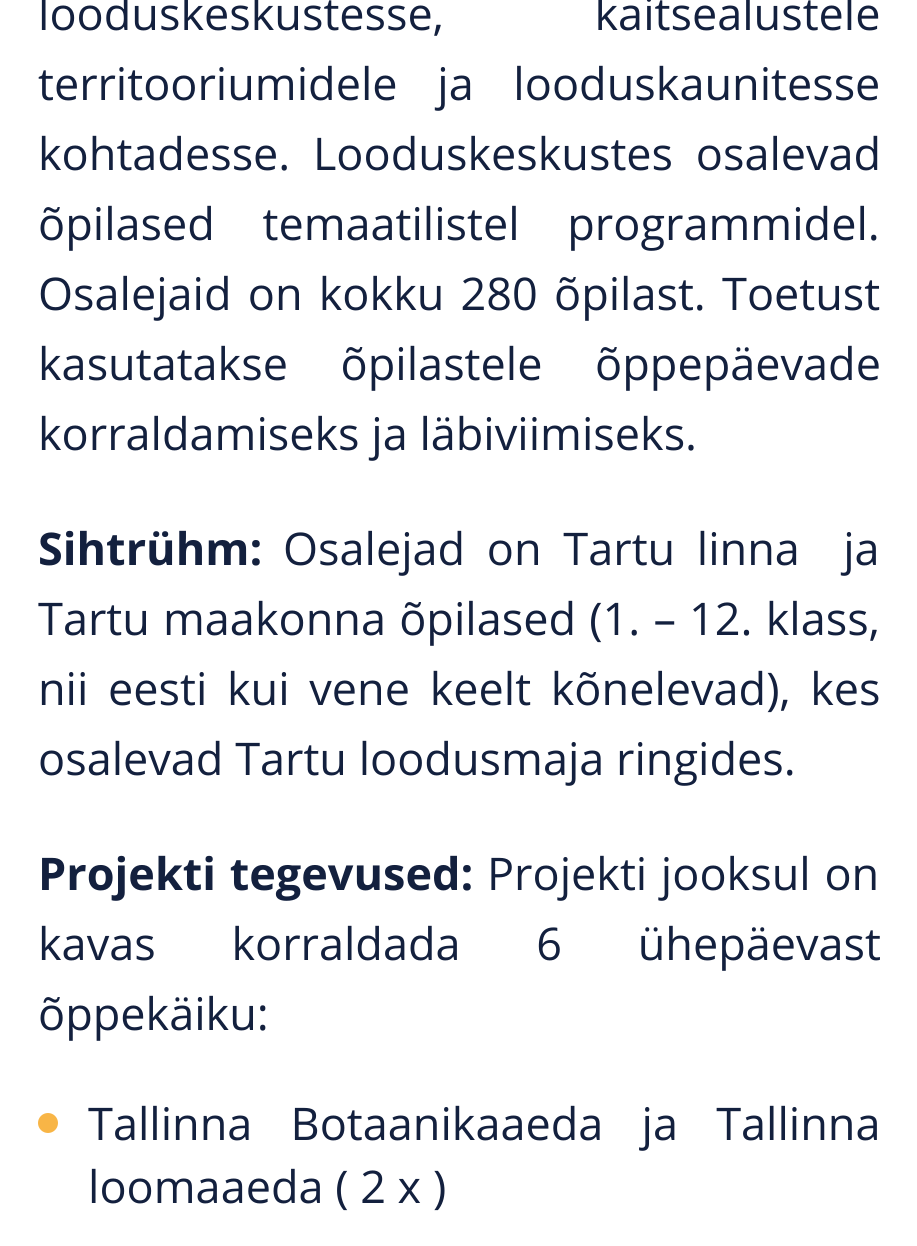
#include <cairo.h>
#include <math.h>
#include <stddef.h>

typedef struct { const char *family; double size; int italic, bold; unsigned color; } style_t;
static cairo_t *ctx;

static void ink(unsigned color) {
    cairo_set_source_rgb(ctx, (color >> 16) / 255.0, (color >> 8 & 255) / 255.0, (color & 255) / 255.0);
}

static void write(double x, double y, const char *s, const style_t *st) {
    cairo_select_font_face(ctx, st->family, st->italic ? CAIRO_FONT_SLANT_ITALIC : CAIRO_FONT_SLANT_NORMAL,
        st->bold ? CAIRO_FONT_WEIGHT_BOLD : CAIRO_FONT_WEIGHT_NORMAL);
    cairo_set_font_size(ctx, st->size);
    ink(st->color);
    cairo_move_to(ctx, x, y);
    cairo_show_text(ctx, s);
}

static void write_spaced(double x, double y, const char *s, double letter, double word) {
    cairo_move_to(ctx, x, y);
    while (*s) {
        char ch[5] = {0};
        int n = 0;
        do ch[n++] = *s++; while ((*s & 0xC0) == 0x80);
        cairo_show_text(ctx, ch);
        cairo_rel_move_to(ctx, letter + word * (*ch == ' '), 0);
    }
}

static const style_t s1 = {"Open Sans", 45, 0, 0, 0x13203e};
static const style_t s2 = {"Open Sans", 45, 0, 1, 0x13203e};

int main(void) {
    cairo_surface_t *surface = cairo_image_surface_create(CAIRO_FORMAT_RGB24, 917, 1246);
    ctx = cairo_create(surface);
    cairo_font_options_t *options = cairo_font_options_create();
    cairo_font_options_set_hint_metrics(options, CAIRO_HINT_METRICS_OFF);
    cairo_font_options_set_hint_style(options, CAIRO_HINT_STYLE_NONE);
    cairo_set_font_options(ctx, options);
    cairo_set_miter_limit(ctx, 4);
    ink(0xffffff);
    cairo_paint(ctx);
    cairo_select_font_face(ctx, "Open Sans", CAIRO_FONT_SLANT_NORMAL, CAIRO_FONT_WEIGHT_NORMAL);
    cairo_set_font_size(ctx, 45);
    ink(0x13203e);
    write_spaced(38, 30, "looduskeskustesse, kaitsealustele", 0, 139);
    write_spaced(38, 100, "territooriumidele ja looduskaunitesse", 0, 28);
    write_spaced(38, 170, "kohtadesse. Looduskeskustes osalevad", 0, 11);
    write_spaced(38, 240, "õpilased temaatilistel programmidel.", 0, 36);
    write_spaced(38, 310, "Osalejaid on kokku 280 õpilast. Toetust", 0, 4.5);
    write_spaced(38, 380, "kasutatakse õpilastele õppepäevade", 0, 41);
    write(38, 450, "korraldamiseks ja läbiviimiseks.", &s1);
    write(38, 565, "Sihtrühm:", &s2);
    cairo_select_font_face(ctx, "Open Sans", CAIRO_FONT_SLANT_NORMAL, CAIRO_FONT_WEIGHT_NORMAL);
    write_spaced(283, 565, "Osalejad on Tartu linna  ja", 0, 10);
    write_spaced(38, 635, "Tartu maakonna õpilased (1. – 12. klass,", 0, 1.5);
    write_spaced(38, 705, "nii eesti kui vene keelt kõnelevad), kes", 0, 8);
    write(38, 775, "osalevad Tartu loodusmaja ringides.", &s1);
    cairo_select_font_face(ctx, "Open Sans", CAIRO_FONT_SLANT_NORMAL, CAIRO_FONT_WEIGHT_BOLD);
    write_spaced(38, 890, "Projekti tegevused:", 0, 2);
    cairo_select_font_face(ctx, "Open Sans", CAIRO_FONT_SLANT_NORMAL, CAIRO_FONT_WEIGHT_NORMAL);
    write_spaced(487, 890, "Projekti jooksul on", 0, 2);
    write_spaced(38, 960, "kavas korraldada 6 ühepäevast", 0, 64);
    write(38, 1030, "õppekäiku:", &s1);
    ink(0xf8b546);
    cairo_new_path(ctx);
    cairo_arc(ctx, 48, 1123, 10, 0, 2 * M_PI);
    cairo_fill(ctx);
    ink(0x13203e);
    write_spaced(88, 1140, "Tallinna Botaanikaaeda ja Tallinna", 0, 26.5);
    write(88, 1203, "loomaaeda ( 2 x )", &s1);
    cairo_surface_write_to_png(surface, "screenshot.png");
    cairo_font_options_destroy(options);
    cairo_destroy(ctx);
    cairo_surface_destroy(surface);
    return 0;
}
